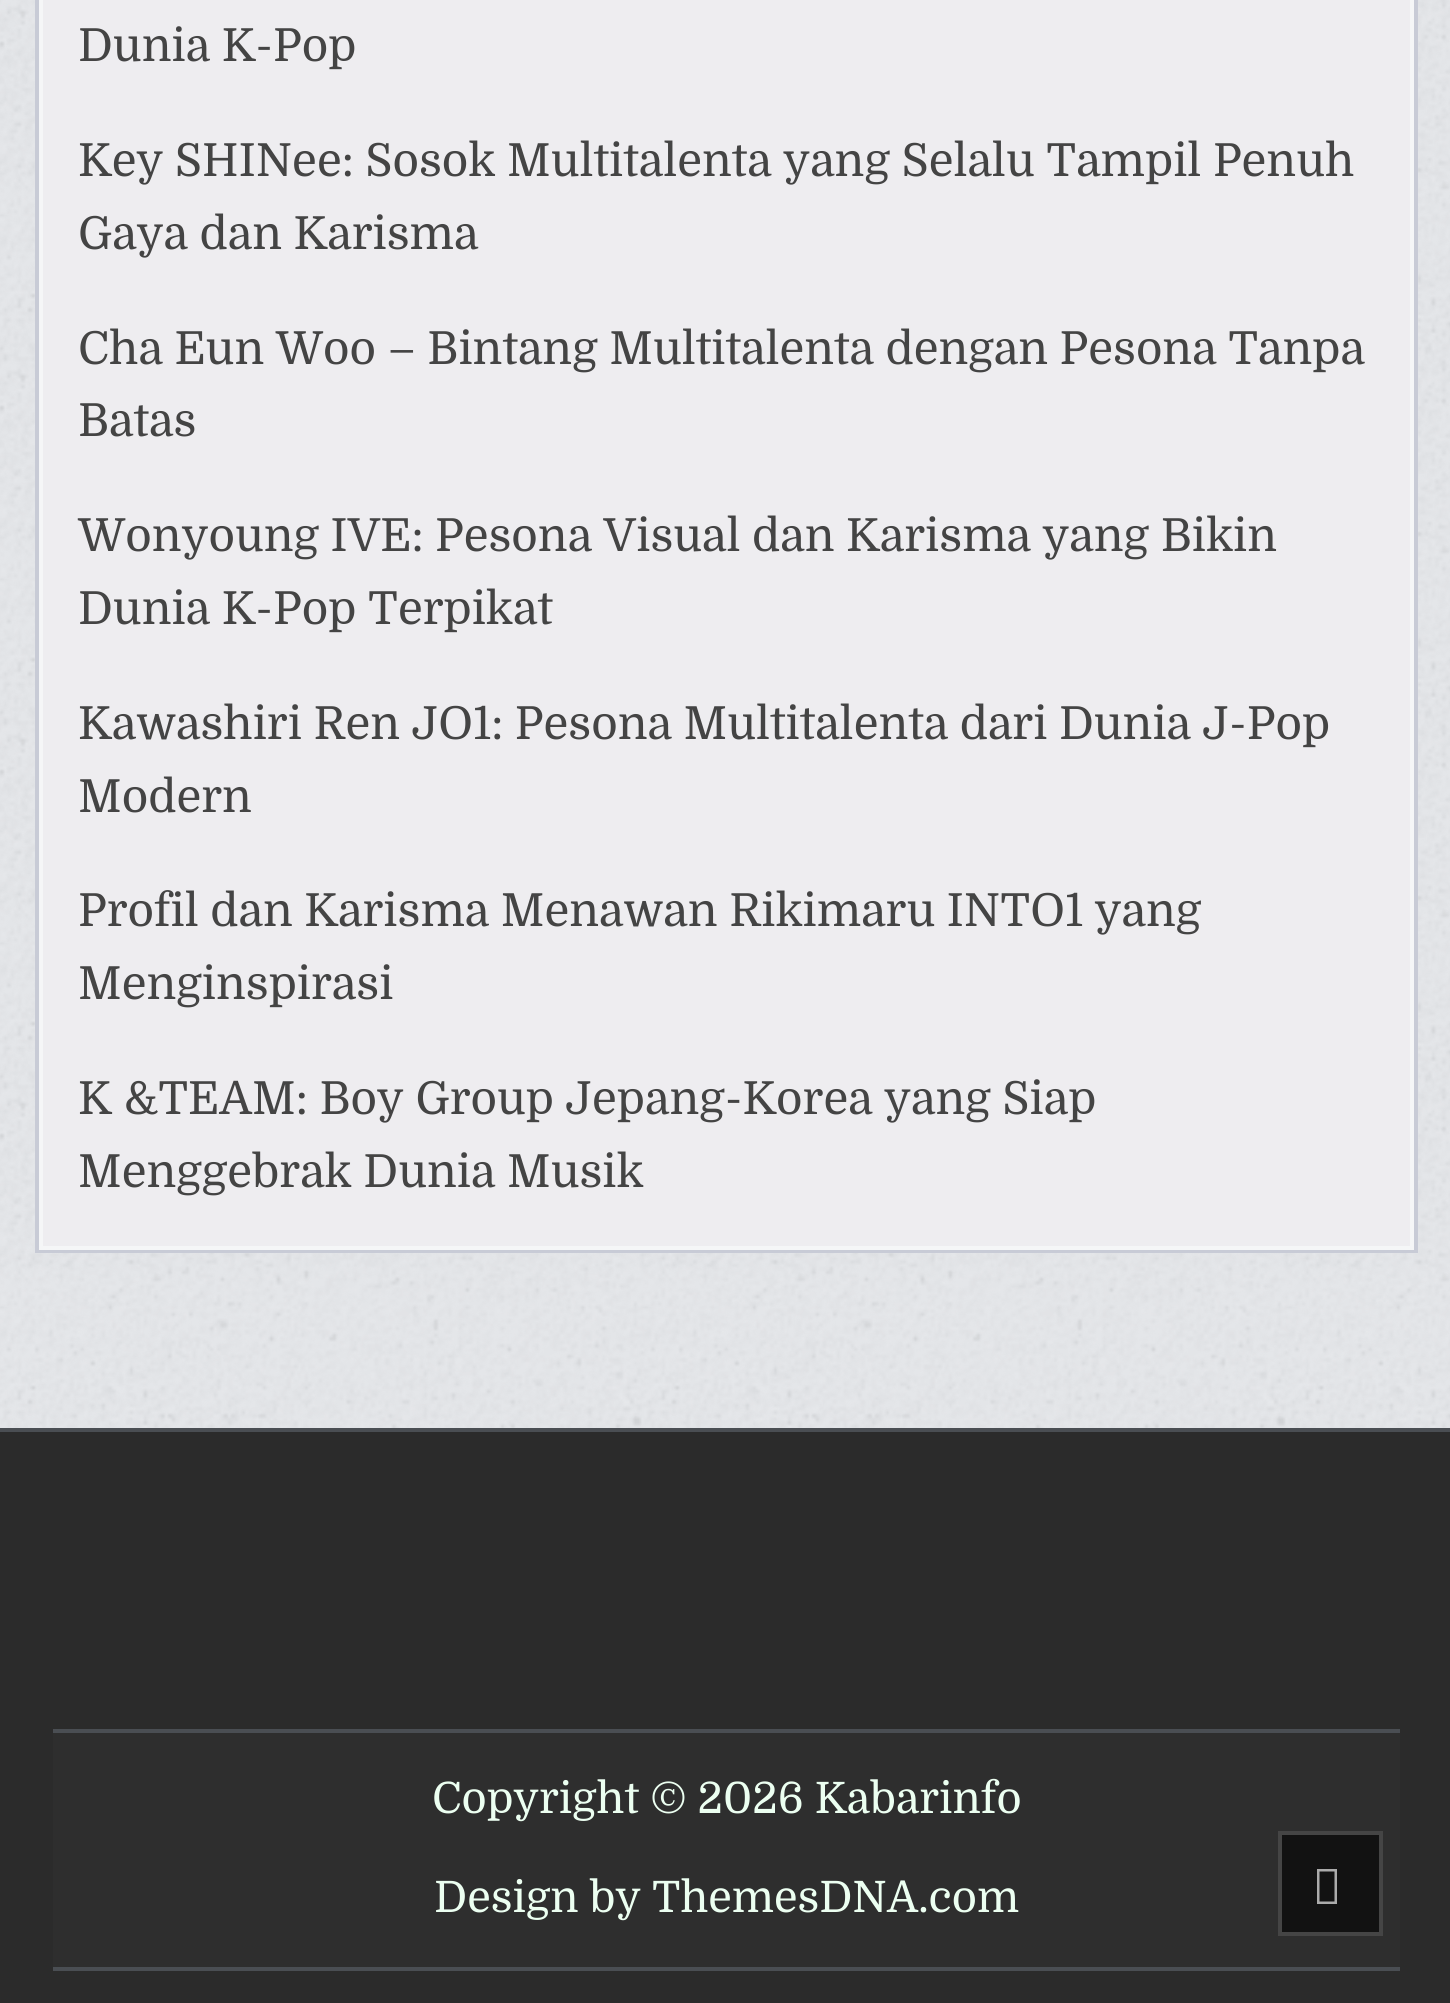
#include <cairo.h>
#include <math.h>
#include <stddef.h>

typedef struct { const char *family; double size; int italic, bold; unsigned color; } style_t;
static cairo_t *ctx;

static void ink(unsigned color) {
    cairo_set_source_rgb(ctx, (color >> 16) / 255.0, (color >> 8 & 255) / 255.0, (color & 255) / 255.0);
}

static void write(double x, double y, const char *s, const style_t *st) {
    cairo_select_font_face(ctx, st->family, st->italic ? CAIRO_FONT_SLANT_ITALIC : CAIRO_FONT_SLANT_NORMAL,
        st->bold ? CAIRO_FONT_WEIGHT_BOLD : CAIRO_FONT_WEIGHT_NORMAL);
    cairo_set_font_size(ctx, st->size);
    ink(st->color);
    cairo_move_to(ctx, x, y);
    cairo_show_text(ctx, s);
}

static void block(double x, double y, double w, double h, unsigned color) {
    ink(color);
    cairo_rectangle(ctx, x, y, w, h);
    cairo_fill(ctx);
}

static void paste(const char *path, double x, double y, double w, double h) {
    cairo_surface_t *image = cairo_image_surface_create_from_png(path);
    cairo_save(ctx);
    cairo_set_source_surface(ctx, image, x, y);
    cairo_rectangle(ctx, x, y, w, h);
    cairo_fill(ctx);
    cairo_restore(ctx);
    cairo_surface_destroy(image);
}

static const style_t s1 = {"Domine", 45.5, 0, 0, 0x444444};
static const style_t s2 = {"Domine", 43.25, 0, 0, 0xecfff1};

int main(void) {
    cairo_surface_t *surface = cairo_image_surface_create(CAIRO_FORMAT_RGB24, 1450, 2003);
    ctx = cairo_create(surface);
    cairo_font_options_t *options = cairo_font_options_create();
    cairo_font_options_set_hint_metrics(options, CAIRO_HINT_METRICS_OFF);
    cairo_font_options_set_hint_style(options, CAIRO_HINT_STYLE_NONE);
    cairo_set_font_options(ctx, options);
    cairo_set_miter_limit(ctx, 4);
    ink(0xe4e6e9);
    cairo_paint(ctx);
    paste("pic1.png", 0, 0, 1450, 1428);
    block(43, 0, 1367, 1246, 0xeeedf0);
    cairo_rectangle(ctx, 37, -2, 1379, 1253);
    ink(0xc8cbd6);
    cairo_set_line_width(ctx, 4);
    cairo_stroke(ctx);
    cairo_rectangle(ctx, 41, -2, 1371, 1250);
    ink(0xf5f6f7);
    cairo_stroke(ctx);
    write(78, 61, "Dunia K-Pop", &s1);
    write(78, 176, "Key SHINee: Sosok Multitalenta yang Selalu Tampil Penuh", &s1);
    write(78, 249, "Gaya dan Karisma", &s1);
    write(78, 364, "Cha Eun Woo – Bintang Multitalenta dengan Pesona Tanpa", &s1);
    write(78, 436, "Batas", &s1);
    write(78, 551, "Wonyoung IVE: Pesona Visual dan Karisma yang Bikin", &s1);
    write(78, 624, "Dunia K-Pop Terpikat", &s1);
    write(78, 739, "Kawashiri Ren JO1: Pesona Multitalenta dari Dunia J-Pop", &s1);
    write(78, 812, "Modern", &s1);
    write(78, 926, "Profil dan Karisma Menawan Rikimaru INTO1 yang", &s1);
    write(78, 999, "Menginspirasi", &s1);
    write(78, 1114, "K &TEAM: Boy Group Jepang-Korea yang Siap", &s1);
    write(78, 1187, "Menggebrak Dunia Musik", &s1);
    block(0, 1432, 1450, 571, 0x2b2b2b);
    block(0, 1428, 1450, 4, 0x4a4e53);
    block(53, 1733, 1347, 234, 0x2e2e2e);
    block(53, 1729, 1347, 4, 0x4a4e53);
    block(53, 1967, 1347, 4, 0x4a4e53);
    write(432, 1813, "Copyright © 2026 Kabarinfo", &s2);
    write(434, 1912, "Design by ThemesDNA.com", &s2);
    ink(0x121212);
    cairo_rectangle(ctx, 1280, 1833, 101, 101);
    cairo_fill_preserve(ctx);
    ink(0x454545);
    cairo_stroke(ctx);
    ink(0xababab);
    cairo_new_path(ctx);
    cairo_move_to(ctx, 1317, 1904);
    cairo_line_to(ctx, 1317, 1869);
    cairo_line_to(ctx, 1337, 1869);
    cairo_line_to(ctx, 1337, 1904);
    cairo_close_path(ctx);
    cairo_move_to(ctx, 1319.5, 1901.5);
    cairo_line_to(ctx, 1334.5, 1901.5);
    cairo_line_to(ctx, 1334.5, 1871.5);
    cairo_line_to(ctx, 1319.5, 1871.5);
    cairo_close_path(ctx);
    cairo_fill(ctx);
    cairo_surface_write_to_png(surface, "screenshot.png");
    cairo_font_options_destroy(options);
    cairo_destroy(ctx);
    cairo_surface_destroy(surface);
    return 0;
}
